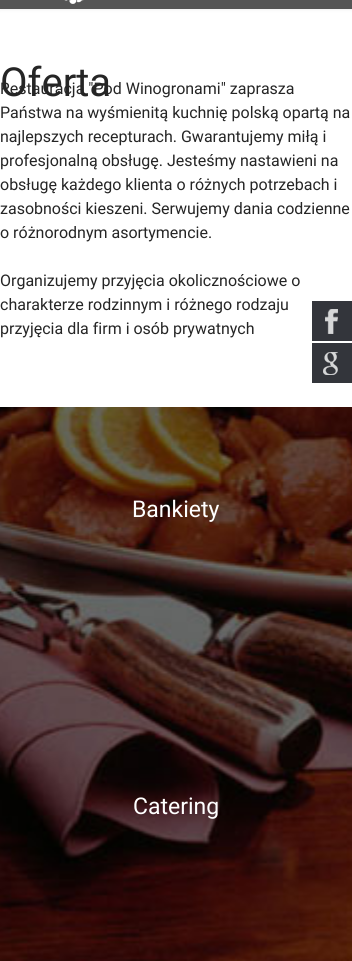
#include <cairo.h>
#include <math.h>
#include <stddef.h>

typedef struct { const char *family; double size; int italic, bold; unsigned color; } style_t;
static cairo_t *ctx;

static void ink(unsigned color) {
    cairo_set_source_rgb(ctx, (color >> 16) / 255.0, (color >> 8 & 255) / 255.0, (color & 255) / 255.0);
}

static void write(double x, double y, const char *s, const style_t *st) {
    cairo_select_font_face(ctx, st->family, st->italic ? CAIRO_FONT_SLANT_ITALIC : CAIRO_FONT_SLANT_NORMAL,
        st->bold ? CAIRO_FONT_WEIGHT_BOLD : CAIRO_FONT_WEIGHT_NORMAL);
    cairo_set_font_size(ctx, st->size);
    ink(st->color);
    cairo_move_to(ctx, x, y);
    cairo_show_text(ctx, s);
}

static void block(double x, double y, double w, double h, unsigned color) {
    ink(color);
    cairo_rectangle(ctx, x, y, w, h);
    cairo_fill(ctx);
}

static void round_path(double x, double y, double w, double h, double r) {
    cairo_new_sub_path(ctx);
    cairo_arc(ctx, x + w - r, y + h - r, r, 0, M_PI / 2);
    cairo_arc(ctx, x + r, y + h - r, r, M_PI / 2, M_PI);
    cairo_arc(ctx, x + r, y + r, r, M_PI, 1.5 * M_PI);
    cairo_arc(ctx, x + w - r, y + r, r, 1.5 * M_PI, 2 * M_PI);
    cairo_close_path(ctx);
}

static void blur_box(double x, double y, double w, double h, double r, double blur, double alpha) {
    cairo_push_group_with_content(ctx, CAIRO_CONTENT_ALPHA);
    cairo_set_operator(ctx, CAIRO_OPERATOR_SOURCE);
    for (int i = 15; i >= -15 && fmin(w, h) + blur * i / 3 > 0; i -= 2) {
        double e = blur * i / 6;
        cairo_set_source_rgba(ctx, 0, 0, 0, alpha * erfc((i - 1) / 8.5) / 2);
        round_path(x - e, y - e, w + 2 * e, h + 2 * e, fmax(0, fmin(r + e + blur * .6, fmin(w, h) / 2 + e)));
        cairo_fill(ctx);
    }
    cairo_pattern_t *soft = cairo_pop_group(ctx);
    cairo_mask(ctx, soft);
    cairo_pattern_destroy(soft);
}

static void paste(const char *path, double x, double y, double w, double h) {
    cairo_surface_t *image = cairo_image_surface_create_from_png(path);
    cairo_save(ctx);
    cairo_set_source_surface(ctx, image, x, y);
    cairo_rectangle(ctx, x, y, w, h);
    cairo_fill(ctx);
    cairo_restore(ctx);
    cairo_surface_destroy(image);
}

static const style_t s1 = {"Roboto", 40, 0, 0, 0x252525};
static const style_t s2 = {"Roboto", 16, 0, 0, 0x252525};
static const style_t s3 = {"Roboto", 23, 0, 0, 0xffffff};

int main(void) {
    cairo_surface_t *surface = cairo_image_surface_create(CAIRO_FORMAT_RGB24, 352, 961);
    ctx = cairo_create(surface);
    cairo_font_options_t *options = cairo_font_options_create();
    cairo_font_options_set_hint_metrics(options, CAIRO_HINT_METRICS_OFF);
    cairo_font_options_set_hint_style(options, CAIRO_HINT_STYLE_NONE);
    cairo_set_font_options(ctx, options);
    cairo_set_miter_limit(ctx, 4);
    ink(0xffffff);
    cairo_paint(ctx);
    ink(0x000000);
    blur_box(0, -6, 352, 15, 0, 2, 0.1);
    block(0, 0, 352, 9, 0x555555);
    paste("pic1.png", 64, 0, 20, 4);
    write(0, 96, "Oferta", &s1);
    write(0, 94, "Restauracja \"Pod Winogronami\" zaprasza", &s2);
    write(0, 118, "Państwa na wyśmienitą kuchnię polską opartą na", &s2);
    write(0, 142, "najlepszych recepturach. Gwarantujemy miłą i", &s2);
    write(0, 166, "profesjonalną obsługę. Jesteśmy nastawieni na", &s2);
    write(0, 190, "obsługę każdego klienta o różnych potrzebach i", &s2);
    write(0, 214, "zasobności kieszeni. Serwujemy dania codzienne", &s2);
    write(0, 238, "o różnorodnym asortymencie.", &s2);
    write(0, 286, "Organizujemy przyjęcia okolicznościowe o", &s2);
    write(0, 310, "charakterze rodzinnym i różnego rodzaju", &s2);
    write(0, 334, "przyjęcia dla firm i osób prywatnych", &s2);
    paste("pic2.png", 0, 407, 352, 554);
    write(132, 517, "Bankiety", &s3);
    write(133, 814, "Catering", &s3);
    block(312, 301, 40, 40, 0x33353b);
    paste("pic3.png", 325, 309, 13, 25);
    block(312, 343, 40, 40, 0x33353b);
    paste("pic4.png", 323, 352, 15, 23);
    cairo_surface_write_to_png(surface, "screenshot.png");
    cairo_font_options_destroy(options);
    cairo_destroy(ctx);
    cairo_surface_destroy(surface);
    return 0;
}
